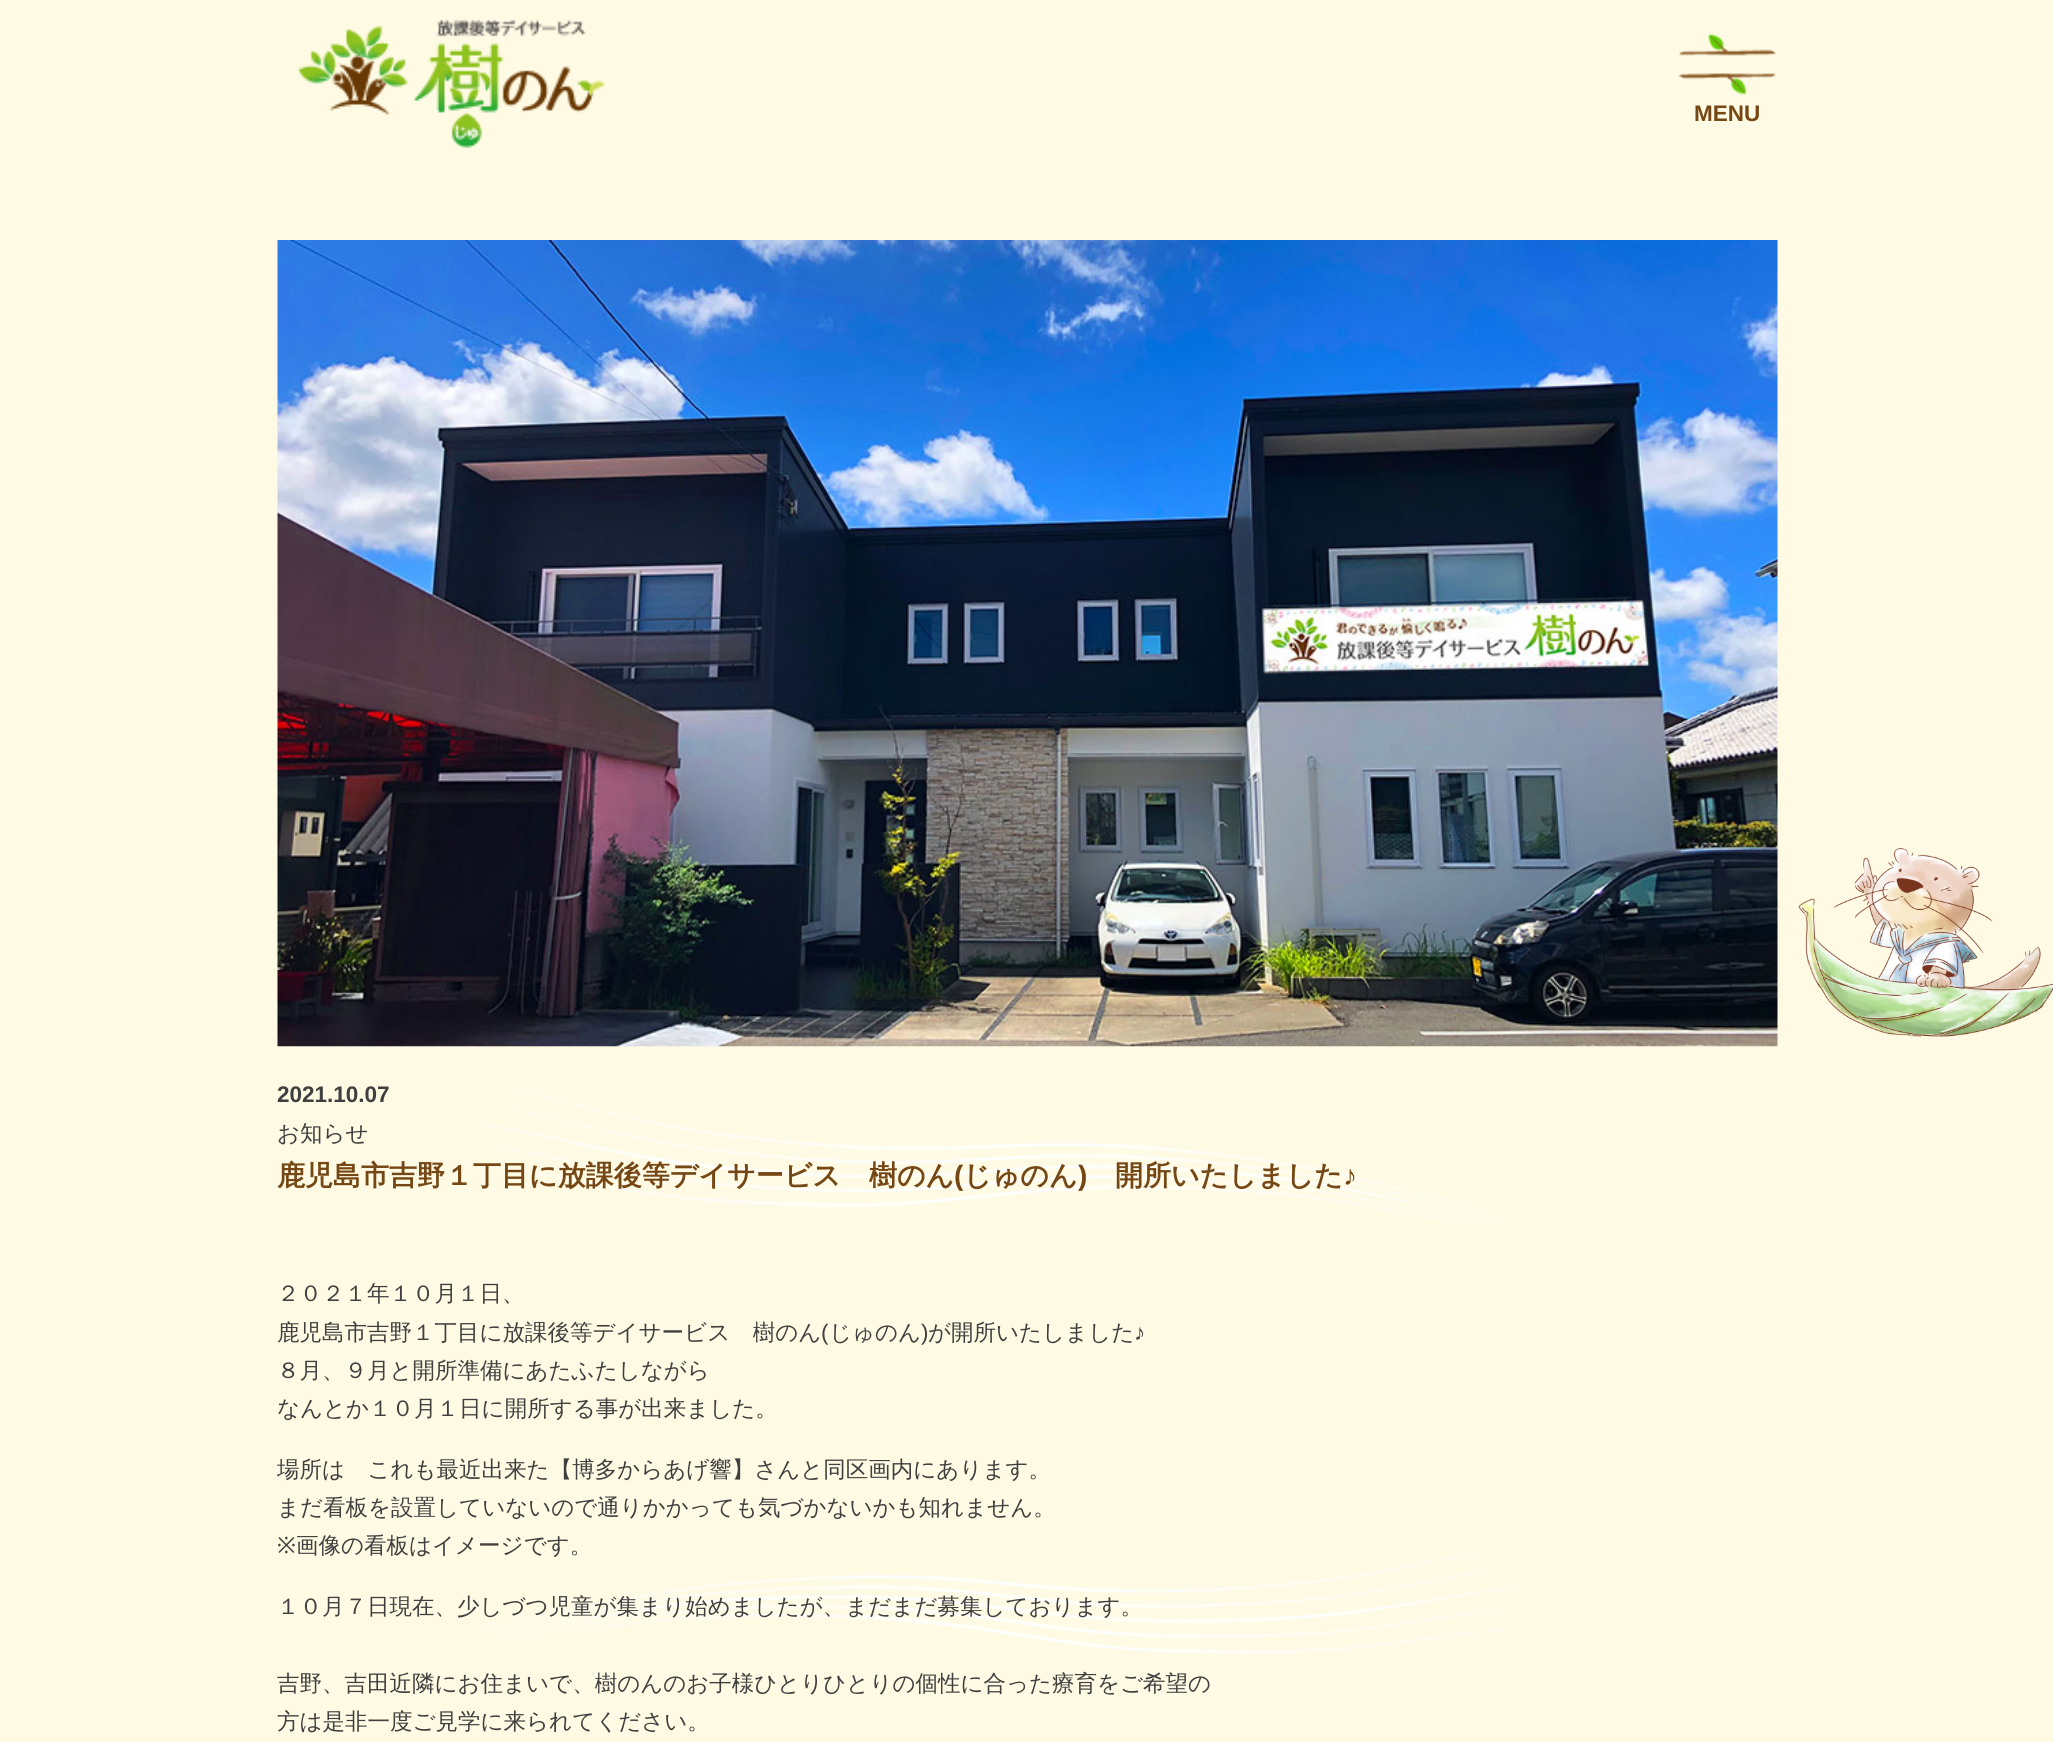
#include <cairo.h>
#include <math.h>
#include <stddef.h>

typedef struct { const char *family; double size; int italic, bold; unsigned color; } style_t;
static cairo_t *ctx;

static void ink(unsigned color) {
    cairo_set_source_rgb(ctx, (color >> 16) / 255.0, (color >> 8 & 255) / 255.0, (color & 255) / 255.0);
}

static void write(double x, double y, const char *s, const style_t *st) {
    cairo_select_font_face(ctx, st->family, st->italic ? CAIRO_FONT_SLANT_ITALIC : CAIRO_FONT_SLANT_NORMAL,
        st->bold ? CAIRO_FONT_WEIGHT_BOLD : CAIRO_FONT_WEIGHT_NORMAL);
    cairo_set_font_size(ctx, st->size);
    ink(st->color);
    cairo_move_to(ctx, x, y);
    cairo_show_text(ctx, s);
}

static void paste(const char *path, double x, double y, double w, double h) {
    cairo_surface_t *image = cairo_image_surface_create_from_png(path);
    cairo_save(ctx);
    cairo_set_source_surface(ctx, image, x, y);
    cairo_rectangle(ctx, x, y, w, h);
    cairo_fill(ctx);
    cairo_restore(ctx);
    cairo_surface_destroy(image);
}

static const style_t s1 = {"Liberation Sans", 22.5, 0, 1, 0x744715};
static const style_t s2 = {"Liberation Sans", 22.5, 0, 1, 0x3f3f3f};
static const style_t s3 = {"WenQuanYi Zen Hei Medium", 22.5, 0, 0, 0x3f3f3f};
static const style_t s4 = {"WenQuanYi Zen Hei", 28, 0, 1, 0x744715};
static const style_t s5 = {"Liberation Sans", 28, 0, 1, 0x744715};
static const style_t s6 = {"Liberation Sans", 22.5, 0, 0, 0x3f3f3f};
static const style_t s7 = {"Noto Sans", 22.5, 0, 0, 0x3f3f3f};

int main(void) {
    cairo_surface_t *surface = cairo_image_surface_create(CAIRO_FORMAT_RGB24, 2053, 1742);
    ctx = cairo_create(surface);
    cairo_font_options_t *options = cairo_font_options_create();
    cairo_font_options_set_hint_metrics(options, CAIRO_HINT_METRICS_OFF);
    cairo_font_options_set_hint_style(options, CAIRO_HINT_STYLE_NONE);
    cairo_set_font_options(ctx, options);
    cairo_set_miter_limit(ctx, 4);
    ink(0xfffae3);
    cairo_paint(ctx);
    paste("pic1.png", 297, 20, 308, 128);
    paste("pic2.png", 1679, 34, 97, 22);
    paste("pic3.png", 1678, 73, 98, 22);
    write(1694, 121, "MENU", &s1);
    paste("pic4.png", 1798, 848, 255, 189);
    paste("pic5.png", 446, 1046, 1110, 608);
    paste("pic6.png", 277, 240, 1501, 807);
    write(277, 1102, "2021.10.07", &s2);
    write(277, 1141, "お知らせ", &s3);
    write(277, 1185, "鹿児島市吉野１丁目に放課後等デイサービス　樹のん", &s4);
    write(954, 1185, "(", &s5);
    write(963, 1185, "じゅのん", &s4);
    write(1078, 1185, ")", &s5);
    write(1115, 1185, "開所いたしました", &s4);
    write(1343, 1185, "♪", &s5);
    write(277, 1301, "２０２１年１０月１日、", &s3);
    write(277, 1340, "鹿児島市吉野１丁目に放課後等デイサービス　樹のん", &s3);
    write(821, 1340, "(", &s6);
    write(829, 1340, "じゅのん", &s3);
    write(921, 1340, ")", &s6);
    write(928, 1340, "が開所いたしました", &s3);
    write(1134, 1340, "♪", &s6);
    write(277, 1378, "８月、９月と開所準備にあたふたしながら", &s3);
    write(277, 1416, "なんとか１０月１日に開所する事が出来ました。", &s3);
    write(277, 1477, "場所は　これも最近出来た【博多からあげ響】さんと同区画内にあります。", &s3);
    write(277, 1515, "まだ看板を設置していないので通りかかっても気づかないかも知れません。", &s3);
    write(277, 1553, "※", &s7);
    write(296, 1553, "画像の看板はイメージです。", &s3);
    write(277, 1614, "１０月７日現在、少しづつ児童が集まり始めましたが、まだまだ募集しております。", &s3);
    write(277, 1691, "吉野、吉田近隣にお住まいで、樹のんのお子様ひとりひとりの個性に合った療育をご希望の", &s3);
    write(277, 1729, "方は是非一度ご見学に来られてください。", &s3);
    cairo_surface_write_to_png(surface, "screenshot.png");
    cairo_font_options_destroy(options);
    cairo_destroy(ctx);
    cairo_surface_destroy(surface);
    return 0;
}
